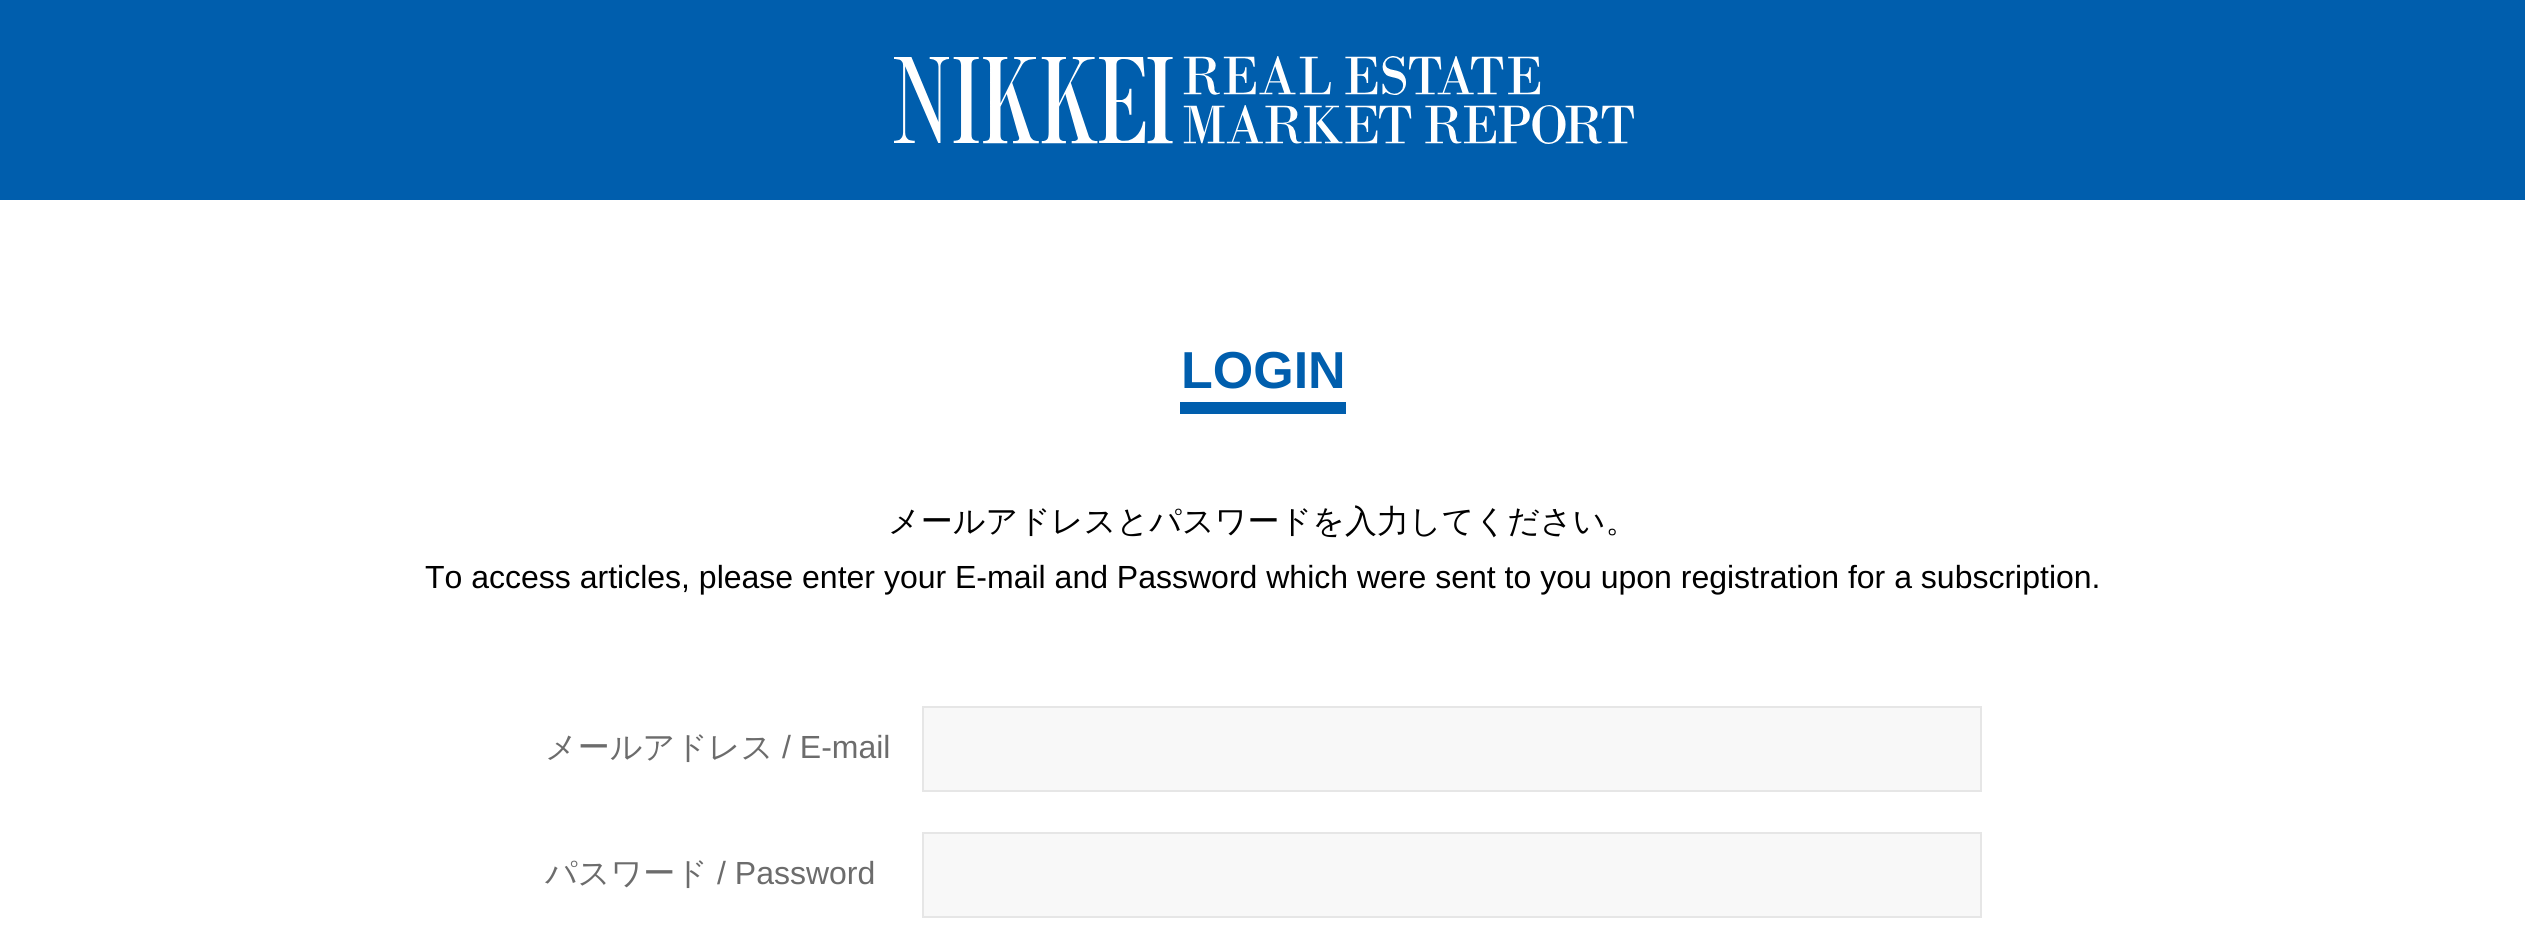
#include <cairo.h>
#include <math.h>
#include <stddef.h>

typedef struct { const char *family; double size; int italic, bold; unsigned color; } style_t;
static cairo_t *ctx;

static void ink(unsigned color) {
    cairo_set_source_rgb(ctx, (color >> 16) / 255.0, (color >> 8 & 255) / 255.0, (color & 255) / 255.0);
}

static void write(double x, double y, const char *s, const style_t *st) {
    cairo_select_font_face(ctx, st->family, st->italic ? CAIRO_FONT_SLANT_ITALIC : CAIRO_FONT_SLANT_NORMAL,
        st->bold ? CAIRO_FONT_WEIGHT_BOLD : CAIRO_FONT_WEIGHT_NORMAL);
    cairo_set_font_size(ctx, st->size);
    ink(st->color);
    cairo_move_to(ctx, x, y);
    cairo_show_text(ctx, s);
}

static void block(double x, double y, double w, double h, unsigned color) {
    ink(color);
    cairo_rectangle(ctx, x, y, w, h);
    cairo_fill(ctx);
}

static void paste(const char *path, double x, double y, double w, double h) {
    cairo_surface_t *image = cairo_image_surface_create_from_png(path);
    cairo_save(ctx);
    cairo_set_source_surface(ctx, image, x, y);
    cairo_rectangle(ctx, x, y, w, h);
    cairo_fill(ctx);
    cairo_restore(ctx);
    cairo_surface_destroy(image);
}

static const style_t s1 = {"Liberation Sans", 52, 0, 1, 0x005ead};
static const style_t s2 = {"WenQuanYi Zen Hei Medium", 32, 0, 0, 0x000000};
static const style_t s3 = {"Liberation Sans", 32, 0, 0, 0x000000};
static const style_t s4 = {"WenQuanYi Zen Hei Medium", 32, 0, 0, 0x6c6c6c};
static const style_t s5 = {"Liberation Sans", 32, 0, 0, 0x6c6c6c};

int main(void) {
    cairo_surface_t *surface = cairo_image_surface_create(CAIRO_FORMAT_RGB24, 2525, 931);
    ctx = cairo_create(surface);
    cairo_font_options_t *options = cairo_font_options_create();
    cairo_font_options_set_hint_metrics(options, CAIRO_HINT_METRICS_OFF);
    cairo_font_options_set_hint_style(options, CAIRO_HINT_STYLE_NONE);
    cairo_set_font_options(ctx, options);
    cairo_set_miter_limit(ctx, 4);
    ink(0xffffff);
    cairo_paint(ctx);
    block(0, 0, 2525, 200, 0x005ead);
    paste("pic1.png", 894, 56, 740, 88);
    block(1180, 402, 166, 12, 0x005ead);
    write(1181, 388, "LOGIN", &s1);
    write(888, 532, "メールアドレスとパスワードを入力してください。", &s2);
    write(425, 588, "To access articles, please enter your E-mail and Password which were sent to you upon registration for a subscription.", &s3);
    write(545, 758, "メールアドレス", &s4);
    write(782, 758, "/ E-mail", &s5);
    ink(0xf8f8f8);
    cairo_rectangle(ctx, 923, 707, 1058, 84);
    cairo_fill_preserve(ctx);
    ink(0xe6e6e6);
    cairo_stroke(ctx);
    write(545, 884, "パスワード", &s4);
    write(717, 884, "/ Password", &s5);
    ink(0xf8f8f8);
    cairo_rectangle(ctx, 923, 833, 1058, 84);
    cairo_fill_preserve(ctx);
    ink(0xe6e6e6);
    cairo_stroke(ctx);
    cairo_surface_write_to_png(surface, "screenshot.png");
    cairo_font_options_destroy(options);
    cairo_destroy(ctx);
    cairo_surface_destroy(surface);
    return 0;
}
